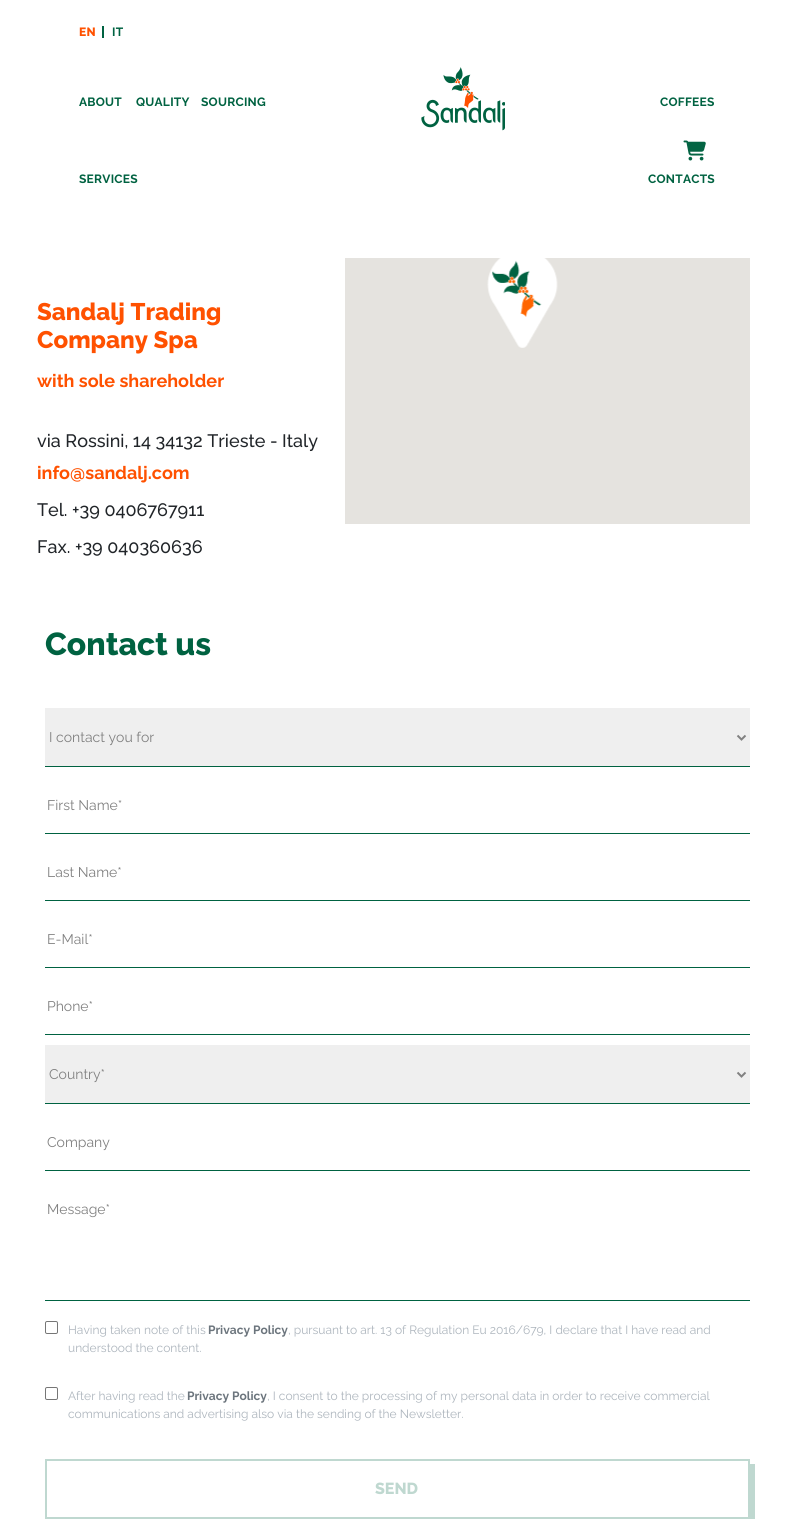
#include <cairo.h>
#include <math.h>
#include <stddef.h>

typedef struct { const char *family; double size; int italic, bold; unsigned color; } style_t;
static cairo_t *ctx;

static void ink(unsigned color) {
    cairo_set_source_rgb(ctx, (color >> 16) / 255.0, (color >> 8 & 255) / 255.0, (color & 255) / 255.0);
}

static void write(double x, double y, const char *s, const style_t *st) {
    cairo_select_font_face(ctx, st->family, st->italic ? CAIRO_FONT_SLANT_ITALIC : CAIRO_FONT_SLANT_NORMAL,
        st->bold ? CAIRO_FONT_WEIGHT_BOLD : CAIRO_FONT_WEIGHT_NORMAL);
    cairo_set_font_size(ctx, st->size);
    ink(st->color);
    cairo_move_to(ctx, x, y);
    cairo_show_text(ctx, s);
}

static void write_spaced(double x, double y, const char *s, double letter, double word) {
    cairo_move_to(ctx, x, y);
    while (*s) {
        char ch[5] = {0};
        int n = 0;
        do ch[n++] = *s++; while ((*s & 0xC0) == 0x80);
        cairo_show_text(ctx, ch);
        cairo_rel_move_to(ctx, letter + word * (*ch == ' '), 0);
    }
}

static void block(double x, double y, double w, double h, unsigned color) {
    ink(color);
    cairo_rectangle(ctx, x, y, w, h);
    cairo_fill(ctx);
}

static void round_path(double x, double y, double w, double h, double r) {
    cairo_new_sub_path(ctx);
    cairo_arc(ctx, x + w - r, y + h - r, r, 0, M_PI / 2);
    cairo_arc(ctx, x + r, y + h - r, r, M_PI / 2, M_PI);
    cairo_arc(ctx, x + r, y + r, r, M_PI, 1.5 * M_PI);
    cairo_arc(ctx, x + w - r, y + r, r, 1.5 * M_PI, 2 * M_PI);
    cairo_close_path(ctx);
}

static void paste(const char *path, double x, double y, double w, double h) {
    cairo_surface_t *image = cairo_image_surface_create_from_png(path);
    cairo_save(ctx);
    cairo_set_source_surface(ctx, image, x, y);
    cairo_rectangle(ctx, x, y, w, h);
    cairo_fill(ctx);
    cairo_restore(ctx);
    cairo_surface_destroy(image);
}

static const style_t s1 = {"Raleway ExtraBold", 24, 0, 0, 0xff5100};
static const style_t s2 = {"Raleway", 18, 0, 1, 0xff5100};
static const style_t s3 = {"Raleway Medium", 18, 0, 0, 0x212529};
static const style_t s4 = {"Raleway ExtraBold", 31.75, 0, 0, 0x006241};
static const style_t s5 = {"Raleway", 14, 0, 0, 0x818181};
static const style_t s6 = {"Raleway", 12, 0, 0, 0xadb5bd};
static const style_t s7 = {"Raleway", 12, 0, 1, 0x6c757d};
static const style_t s8 = {"Raleway ExtraBold", 16, 0, 0, 0xbfd8d0};

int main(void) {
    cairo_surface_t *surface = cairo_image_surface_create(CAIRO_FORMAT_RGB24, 794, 1519);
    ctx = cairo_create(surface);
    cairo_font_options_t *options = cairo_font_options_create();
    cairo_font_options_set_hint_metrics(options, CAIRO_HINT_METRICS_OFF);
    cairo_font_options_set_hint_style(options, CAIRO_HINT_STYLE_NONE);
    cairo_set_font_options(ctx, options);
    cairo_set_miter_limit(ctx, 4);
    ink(0xffffff);
    cairo_paint(ctx);
    cairo_select_font_face(ctx, "Raleway ExtraBold", CAIRO_FONT_SLANT_NORMAL, CAIRO_FONT_WEIGHT_NORMAL);
    cairo_set_font_size(ctx, 12);
    ink(0xff5100);
    write_spaced(79, 36, "EN", 0.25, 0);
    block(102, 26, 2, 12, 0x006241);
    cairo_select_font_face(ctx, "Raleway", CAIRO_FONT_SLANT_NORMAL, CAIRO_FONT_WEIGHT_BOLD);
    write_spaced(112, 36, "IT", 0.25, 0);
    write_spaced(79, 106, "ABOUT", 0.25, 0);
    write_spaced(136, 106, "QUALITY", 0.25, 0);
    write_spaced(201, 106, "SOURCING", 0.25, 0);
    paste("pic1.png", 421, 67, 84, 64);
    write_spaced(660, 106, "COFFEES", 0.25, 0);
    write_spaced(79, 183, "SERVICES", 0.25, 0);
    paste("pic2.png", 683, 140, 23, 21);
    write_spaced(648, 183, "CONTACTS", 0.25, 0);
    write(37, 320, "Sandalj Trading", &s1);
    write(37, 348, "Company Spa", &s1);
    write(37, 387, "with sole shareholder", &s2);
    write(37, 447, "via Rossini, 14 34132 Trieste - Italy", &s3);
    write(37, 479, "info@sandalj.com", &s2);
    write(37, 516, "Tel. +39 0406767911", &s3);
    write(37, 553, "Fax. +39 040360636", &s3);
    block(345, 258, 405, 266, 0xe5e3df);
    paste("pic3.png", 487, 258, 71, 90);
    write(45, 655, "Contact us", &s4);
    block(45, 708, 705, 58, 0xefefef);
    block(45, 766, 705, 1, 0x006241);
    cairo_new_path(ctx);
    cairo_move_to(ctx, 737.5, 735.5);
    cairo_line_to(ctx, 741.5, 739.5);
    cairo_line_to(ctx, 745.5, 735.5);
    ink(0x818181);
    cairo_stroke(ctx);
    write(49, 742, "I contact you for", &s5);
    block(45, 833, 705, 1, 0x006241);
    write(47, 810, "First Name*", &s5);
    block(45, 900, 705, 1, 0x006241);
    write(47, 877, "Last Name*", &s5);
    block(45, 967, 705, 1, 0x006241);
    write(47, 944, "E-Mail*", &s5);
    block(45, 1034, 705, 1, 0x006241);
    write(47, 1011, "Phone*", &s5);
    block(45, 1045, 705, 58, 0xefefef);
    block(45, 1103, 705, 1, 0x006241);
    cairo_new_path(ctx);
    cairo_move_to(ctx, 737.5, 1072.5);
    cairo_line_to(ctx, 741.5, 1076.5);
    cairo_line_to(ctx, 745.5, 1072.5);
    ink(0x818181);
    cairo_stroke(ctx);
    write(49, 1079, "Country*", &s5);
    block(45, 1170, 705, 1, 0x006241);
    write(47, 1147, "Company", &s5);
    block(45, 1300, 705, 1, 0x006241);
    write(47, 1214, "Message*", &s5);
    round_path(45.5, 1321.5, 12, 12, 1.5);
    ink(0x767676);
    cairo_set_line_width(ctx, 1);
    cairo_stroke(ctx);
    write(68, 1334, "Having taken note of this", &s6);
    write(208, 1334, "Privacy Policy", &s7);
    write(288, 1334, ", pursuant to art. 13 of Regulation Eu 2016/679, I declare that I have read and", &s6);
    write(68, 1352, "understood the content.", &s6);
    round_path(45.5, 1387.5, 12, 12, 1.5);
    ink(0x767676);
    cairo_stroke(ctx);
    write(68, 1400, "After having read the", &s6);
    write(187, 1400, "Privacy Policy", &s7);
    write(267, 1400, ", I consent to the processing of my personal data in order to receive commercial", &s6);
    write(68, 1418, "communications and advertising also via the sending of the Newsletter.", &s6);
    ink(0xbfd8d0);
    cairo_new_path(ctx);
    cairo_move_to(ctx, 50, 1519);
    cairo_line_to(ctx, 50, 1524);
    cairo_line_to(ctx, 755, 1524);
    cairo_line_to(ctx, 755, 1464);
    cairo_line_to(ctx, 750, 1464);
    cairo_line_to(ctx, 750, 1519);
    cairo_close_path(ctx);
    cairo_fill(ctx);
    cairo_rectangle(ctx, 46, 1460, 703, 58);
    cairo_set_line_width(ctx, 2);
    cairo_stroke(ctx);
    write(375, 1494, "SEND", &s8);
    cairo_surface_write_to_png(surface, "screenshot.png");
    cairo_font_options_destroy(options);
    cairo_destroy(ctx);
    cairo_surface_destroy(surface);
    return 0;
}
